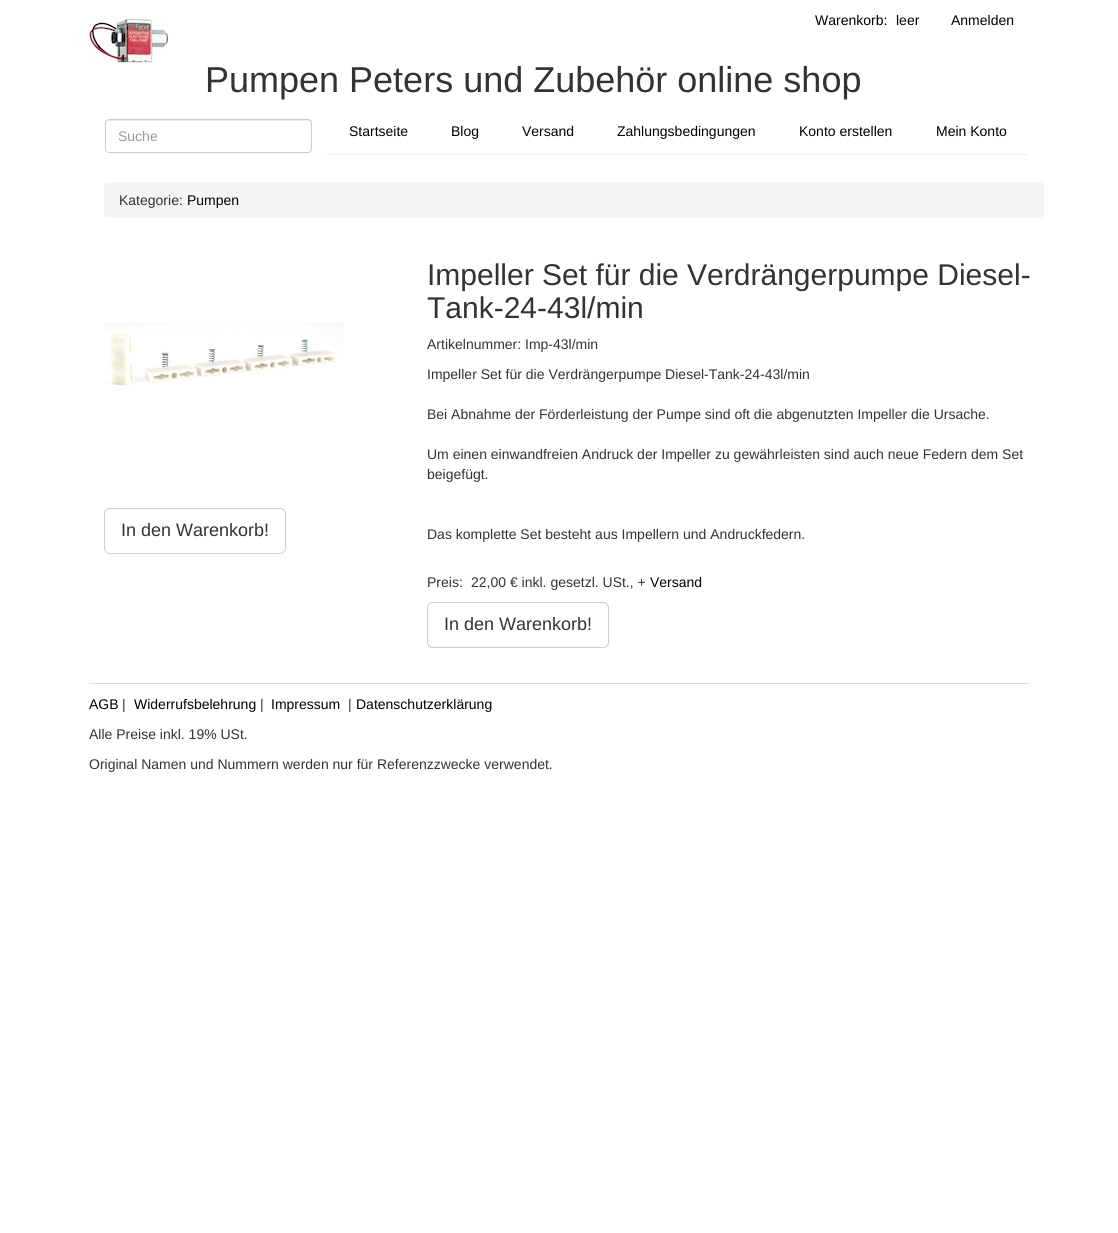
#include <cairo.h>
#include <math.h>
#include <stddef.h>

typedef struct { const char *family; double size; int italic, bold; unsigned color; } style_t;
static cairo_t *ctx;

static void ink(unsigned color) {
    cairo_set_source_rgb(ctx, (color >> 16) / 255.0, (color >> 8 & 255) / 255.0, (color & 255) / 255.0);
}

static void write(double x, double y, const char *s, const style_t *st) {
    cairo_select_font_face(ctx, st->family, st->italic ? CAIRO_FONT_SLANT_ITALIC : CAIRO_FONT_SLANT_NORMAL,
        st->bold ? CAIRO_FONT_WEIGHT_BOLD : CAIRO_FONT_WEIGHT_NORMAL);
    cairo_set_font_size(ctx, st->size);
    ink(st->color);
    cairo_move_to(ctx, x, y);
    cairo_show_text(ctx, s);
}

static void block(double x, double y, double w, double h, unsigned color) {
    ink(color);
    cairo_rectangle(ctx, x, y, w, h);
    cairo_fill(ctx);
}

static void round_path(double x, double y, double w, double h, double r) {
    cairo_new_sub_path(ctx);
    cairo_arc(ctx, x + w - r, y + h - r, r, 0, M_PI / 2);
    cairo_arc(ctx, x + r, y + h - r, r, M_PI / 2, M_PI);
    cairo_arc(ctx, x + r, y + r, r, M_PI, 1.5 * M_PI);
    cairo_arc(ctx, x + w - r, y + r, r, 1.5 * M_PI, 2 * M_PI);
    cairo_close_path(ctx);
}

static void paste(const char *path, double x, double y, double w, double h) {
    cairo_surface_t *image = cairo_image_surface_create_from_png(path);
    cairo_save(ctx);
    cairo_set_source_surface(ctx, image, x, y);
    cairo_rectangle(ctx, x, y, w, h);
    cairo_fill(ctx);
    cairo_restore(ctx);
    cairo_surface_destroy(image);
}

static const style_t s1 = {"Liberation Sans", 14, 0, 0, 0x000000};
static const style_t s2 = {"Liberation Sans", 36, 0, 0, 0x333333};
static const style_t s3 = {"Liberation Sans", 14, 0, 0, 0x999999};
static const style_t s4 = {"Liberation Sans", 14, 0, 0, 0x333333};
static const style_t s5 = {"Liberation Sans", 18, 0, 0, 0x333333};
static const style_t s6 = {"Liberation Sans", 30, 0, 0, 0x333333};

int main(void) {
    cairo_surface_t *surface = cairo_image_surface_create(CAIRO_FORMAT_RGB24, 1118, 1233);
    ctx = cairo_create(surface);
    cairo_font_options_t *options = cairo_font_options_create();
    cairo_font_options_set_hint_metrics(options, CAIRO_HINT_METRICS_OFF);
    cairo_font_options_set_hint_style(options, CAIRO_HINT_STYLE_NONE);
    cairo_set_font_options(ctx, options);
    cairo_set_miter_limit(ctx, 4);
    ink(0xffffff);
    cairo_paint(ctx);
    paste("pic1.png", 89, 16, 80, 48);
    write(815, 25, "Warenkorb:", &s1);
    write(896, 25, "leer", &s1);
    write(951, 25, "Anmelden", &s1);
    write(205, 92, "Pumpen Peters und Zubehör online shop", &s2);
    ink(0xececec);
    cairo_new_path(ctx);
    cairo_move_to(ctx, 109, 121);
    cairo_line_to(ctx, 308, 121);
    cairo_curve_to(ctx, 310, 121, 311, 122, 311, 124);
    cairo_curve_to(ctx, 311, 122, 310, 120, 308, 120);
    cairo_line_to(ctx, 109, 120);
    cairo_curve_to(ctx, 107, 120, 106, 122, 106, 124);
    cairo_curve_to(ctx, 106, 122, 107, 121, 109, 121);
    cairo_close_path(ctx);
    cairo_fill(ctx);
    round_path(105.5, 119.5, 206, 33, 3.5);
    ink(0xcccccc);
    cairo_set_line_width(ctx, 1);
    cairo_stroke(ctx);
    write(118, 141, "Suche", &s3);
    block(327, 154, 701, 1, 0xeeeeee);
    write(349, 136, "Startseite", &s1);
    write(451, 136, "Blog", &s1);
    write(522, 136, "Versand", &s1);
    write(617, 136, "Zahlungsbedingungen", &s1);
    write(799, 136, "Konto erstellen", &s1);
    write(936, 136, "Mein Konto", &s1);
    ink(0xf5f5f5);
    round_path(104, 182, 940, 36, 4);
    cairo_fill(ctx);
    write(119, 205, "Kategorie:", &s4);
    write(187, 205, "Pumpen", &s1);
    paste("pic2.png", 104, 322, 240, 64);
    round_path(104.5, 508.5, 181, 45, 5.5);
    ink(0xcccccc);
    cairo_stroke(ctx);
    write(121, 536, "In den Warenkorb!", &s5);
    write(427, 285, "Impeller Set für die Verdrängerpumpe Diesel-", &s6);
    write(427, 318, "Tank-24-43l/min", &s6);
    write(427, 349, "Artikelnummer: Imp-43l/min", &s4);
    write(427, 379, "Impeller Set für die Verdrängerpumpe Diesel-Tank-24-43l/min", &s4);
    write(427, 419, "Bei Abnahme der Förderleistung der Pumpe sind oft die abgenutzten Impeller die Ursache.", &s4);
    write(427, 459, "Um einen einwandfreien Andruck der Impeller zu gewährleisten sind auch neue Federn dem Set", &s4);
    write(427, 479, "beigefügt.", &s4);
    write(427, 539, "Das komplette Set besteht aus Impellern und Andruckfedern.", &s4);
    write(427, 587, "Preis:", &s4);
    write(471, 587, "22,00 € inkl. gesetzl. USt., +", &s4);
    write(650, 587, "Versand", &s1);
    round_path(427.5, 602.5, 181, 45, 5.5);
    ink(0xcccccc);
    cairo_stroke(ctx);
    write(444, 630, "In den Warenkorb!", &s5);
    block(89, 683, 940, 1, 0xdddddd);
    write(89, 709, "AGB", &s1);
    write(122, 709, "|", &s4);
    write(134, 709, "Widerrufsbelehrung", &s1);
    write(260, 709, "|", &s4);
    write(271, 709, "Impressum", &s1);
    write(348, 709, "|", &s4);
    write(356, 709, "Datenschutzerklärung", &s1);
    write(89, 739, "Alle Preise inkl. 19% USt.", &s4);
    write(89, 769, "Original Namen und Nummern werden nur für Referenzzwecke verwendet.", &s4);
    cairo_surface_write_to_png(surface, "screenshot.png");
    cairo_font_options_destroy(options);
    cairo_destroy(ctx);
    cairo_surface_destroy(surface);
    return 0;
}
